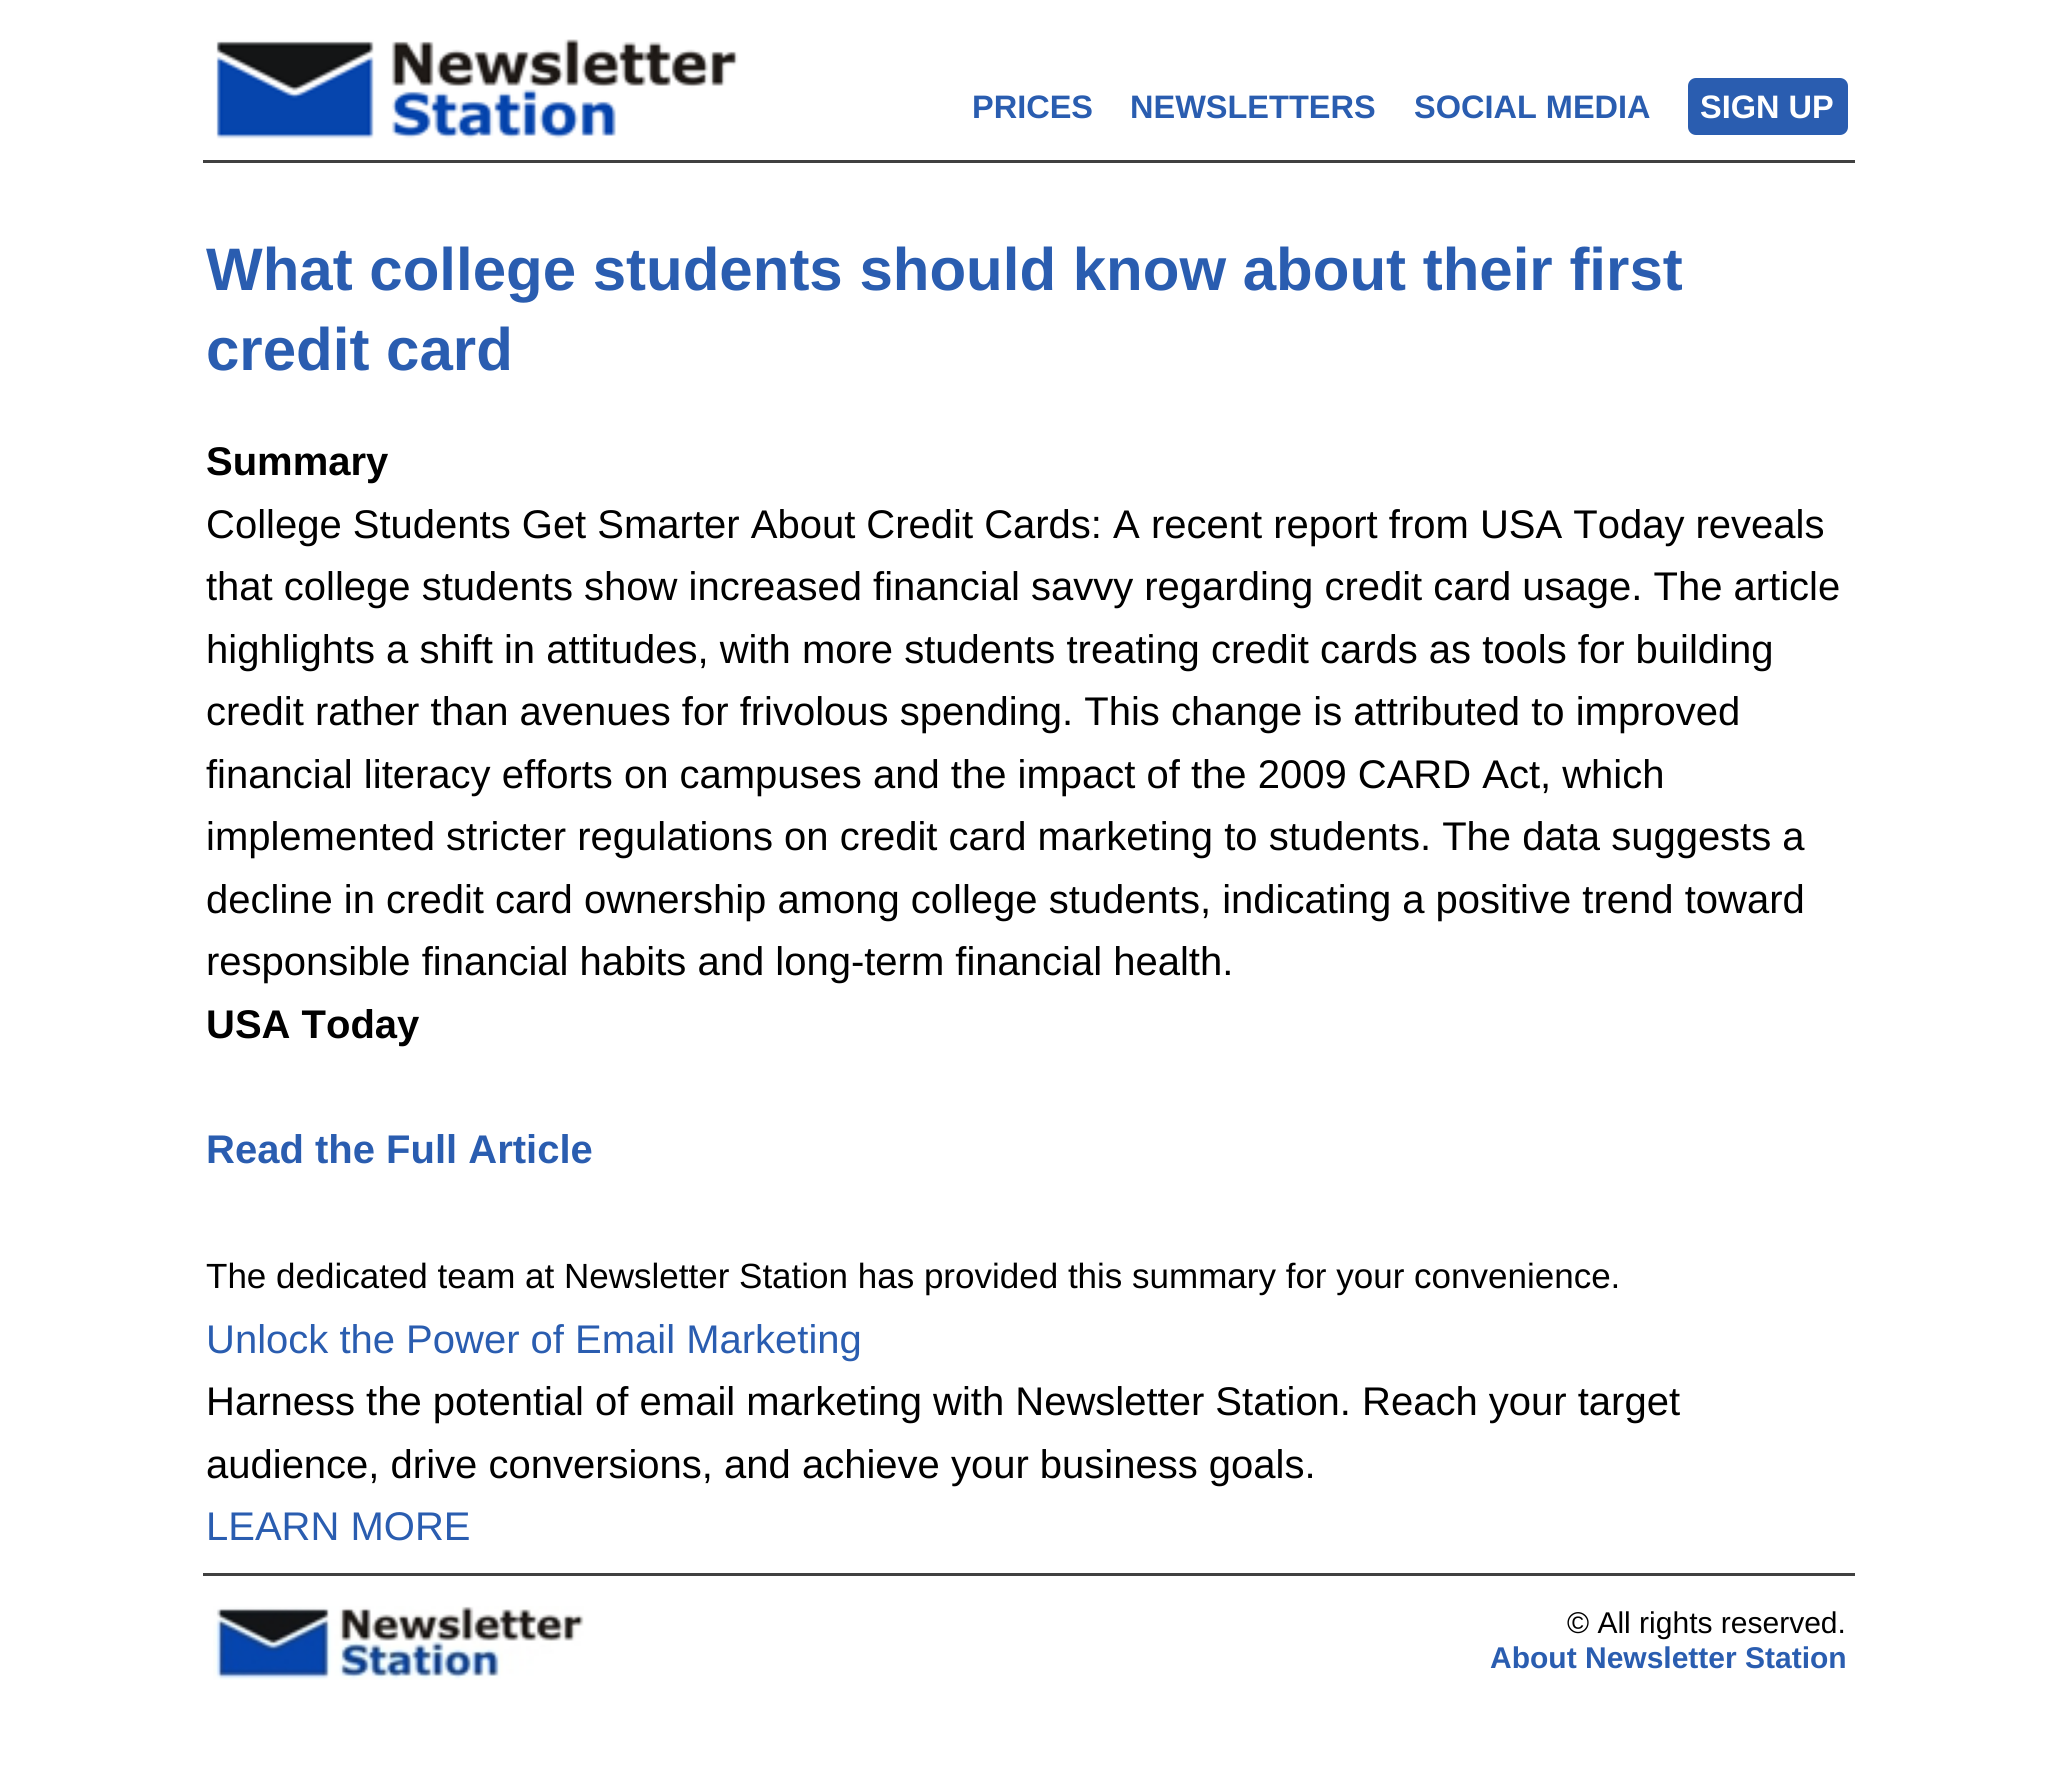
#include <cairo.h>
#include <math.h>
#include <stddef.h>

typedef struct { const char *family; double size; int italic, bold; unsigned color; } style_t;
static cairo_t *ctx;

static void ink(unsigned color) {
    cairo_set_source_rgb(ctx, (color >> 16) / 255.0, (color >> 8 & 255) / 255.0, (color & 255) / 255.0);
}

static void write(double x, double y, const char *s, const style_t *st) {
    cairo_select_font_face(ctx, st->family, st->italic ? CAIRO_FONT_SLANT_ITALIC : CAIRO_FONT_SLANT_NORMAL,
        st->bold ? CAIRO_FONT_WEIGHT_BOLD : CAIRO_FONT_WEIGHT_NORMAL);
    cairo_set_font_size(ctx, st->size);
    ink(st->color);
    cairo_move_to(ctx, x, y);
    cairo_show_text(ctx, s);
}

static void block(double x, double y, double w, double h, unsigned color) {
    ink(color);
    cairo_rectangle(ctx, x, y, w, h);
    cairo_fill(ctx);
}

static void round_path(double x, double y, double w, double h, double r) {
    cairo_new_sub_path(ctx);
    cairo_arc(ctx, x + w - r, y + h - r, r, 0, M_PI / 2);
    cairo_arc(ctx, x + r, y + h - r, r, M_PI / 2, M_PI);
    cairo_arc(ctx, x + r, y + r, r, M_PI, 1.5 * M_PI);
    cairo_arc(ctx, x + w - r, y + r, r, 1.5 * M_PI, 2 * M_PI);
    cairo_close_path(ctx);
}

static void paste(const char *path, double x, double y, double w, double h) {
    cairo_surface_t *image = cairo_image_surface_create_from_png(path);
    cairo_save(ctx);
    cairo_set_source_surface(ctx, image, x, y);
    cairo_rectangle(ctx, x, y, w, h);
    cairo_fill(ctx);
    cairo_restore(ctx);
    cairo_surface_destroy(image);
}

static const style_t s1 = {"Liberation Sans", 32.5, 0, 1, 0x2a5db0};
static const style_t s2 = {"Liberation Sans", 32.5, 0, 1, 0xffffff};
static const style_t s3 = {"Liberation Sans", 60, 0, 1, 0x2a5db0};
static const style_t s4 = {"Liberation Sans", 40, 0, 1, 0x000000};
static const style_t s5 = {"Liberation Sans", 40, 0, 0, 0x000000};
static const style_t s6 = {"Liberation Sans", 40, 0, 1, 0x2a5db0};
static const style_t s7 = {"Liberation Sans", 35, 0, 0, 0x000000};
static const style_t s8 = {"Liberation Sans", 40, 0, 0, 0x2a5db0};
static const style_t s9 = {"Liberation Sans", 30, 0, 0, 0x000000};
static const style_t s10 = {"Liberation Sans", 30, 0, 1, 0x2a5db0};

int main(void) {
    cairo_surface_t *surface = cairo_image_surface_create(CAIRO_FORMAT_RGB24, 2056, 1770);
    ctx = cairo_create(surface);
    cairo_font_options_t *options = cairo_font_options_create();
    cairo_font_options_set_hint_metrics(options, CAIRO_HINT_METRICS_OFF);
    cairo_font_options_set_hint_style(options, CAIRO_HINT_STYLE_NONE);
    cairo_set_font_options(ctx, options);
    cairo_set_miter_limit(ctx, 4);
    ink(0xffffff);
    cairo_paint(ctx);
    block(203, 160, 1652, 3, 0x404040);
    paste("pic1.png", 216, 39, 522, 100);
    write(972, 118, "PRICES", &s1);
    write(1130, 118, "NEWSLETTERS", &s1);
    write(1414, 118, "SOCIAL MEDIA", &s1);
    round_path(1688, 78, 160, 57, 8);
    cairo_fill(ctx);
    write(1700, 118, "SIGN UP", &s2);
    write(206, 290, "What college students should know about their first", &s3);
    write(206, 370, "credit card", &s3);
    write(206, 475, "Summary", &s4);
    write(206, 538, "College Students Get Smarter About Credit Cards: A recent report from USA Today reveals", &s5);
    write(206, 600, "that college students show increased financial savvy regarding credit card usage. The article", &s5);
    write(206, 663, "highlights a shift in attitudes, with more students treating credit cards as tools for building", &s5);
    write(206, 725, "credit rather than avenues for frivolous spending. This change is attributed to improved", &s5);
    write(206, 788, "financial literacy efforts on campuses and the impact of the 2009 CARD Act, which", &s5);
    write(206, 850, "implemented stricter regulations on credit card marketing to students. The data suggests a", &s5);
    write(206, 913, "decline in credit card ownership among college students, indicating a positive trend toward", &s5);
    write(206, 975, "responsible financial habits and long-term financial health.", &s5);
    write(206, 1038, "USA Today", &s4);
    write(206, 1163, "Read the Full Article", &s6);
    write(206, 1288, "The dedicated team at Newsletter Station has provided this summary for your convenience.", &s7);
    write(206, 1353, "Unlock the Power of Email Marketing", &s8);
    write(206, 1415, "Harness the potential of email marketing with Newsletter Station. Reach your target", &s5);
    write(206, 1478, "audience, drive conversions, and achieve your business goals.", &s5);
    write(206, 1540, "LEARN MORE", &s8);
    block(203, 1573, 1652, 3, 0x404040);
    paste("pic2.png", 213, 1606, 371, 74);
    write(1567, 1633, "© All rights reserved.", &s9);
    write(1490, 1668, "About Newsletter Station", &s10);
    cairo_surface_write_to_png(surface, "screenshot.png");
    cairo_font_options_destroy(options);
    cairo_destroy(ctx);
    cairo_surface_destroy(surface);
    return 0;
}
